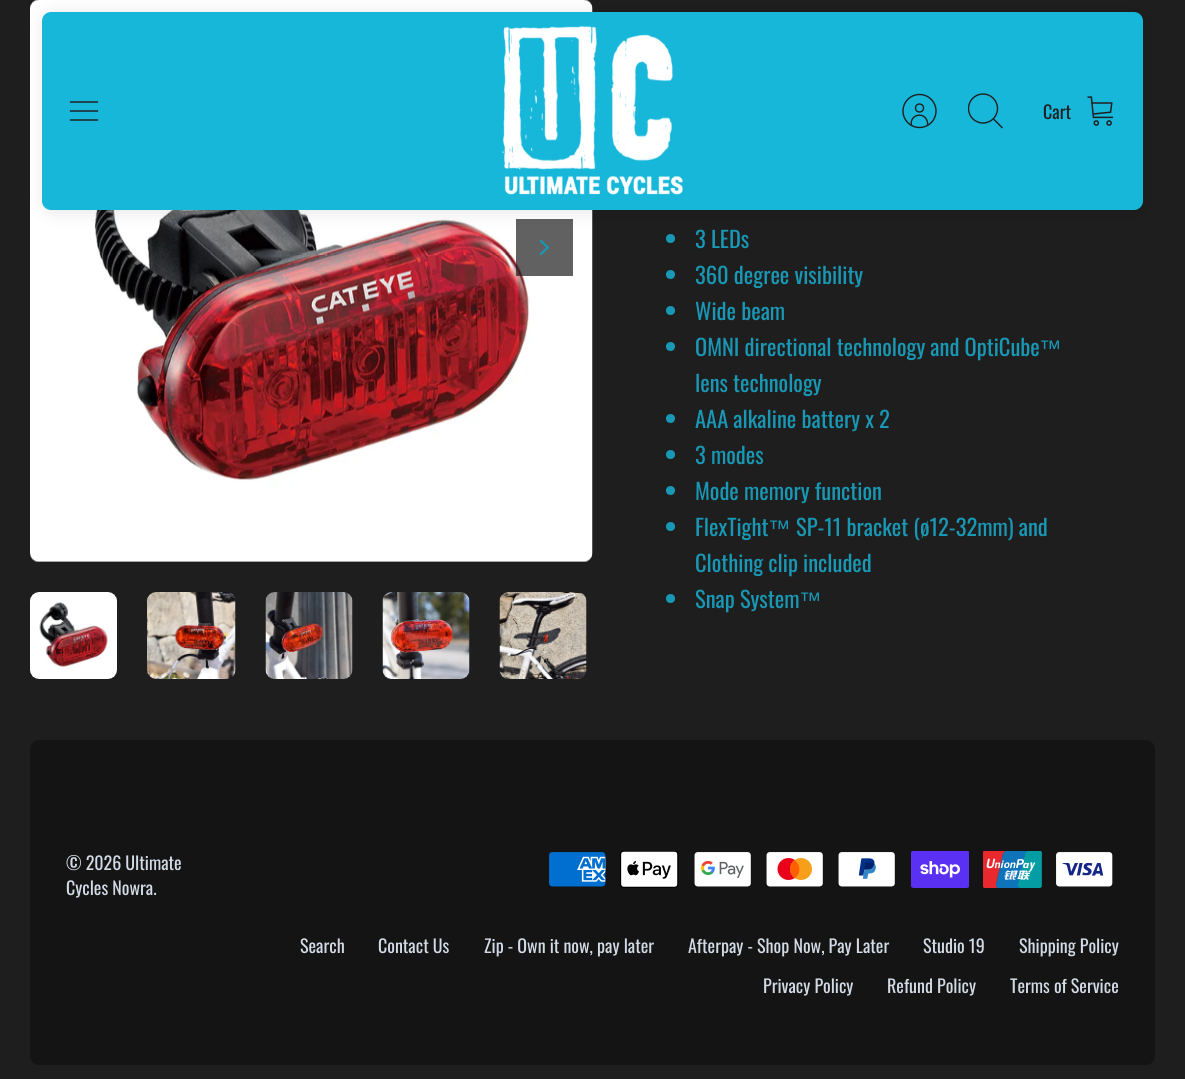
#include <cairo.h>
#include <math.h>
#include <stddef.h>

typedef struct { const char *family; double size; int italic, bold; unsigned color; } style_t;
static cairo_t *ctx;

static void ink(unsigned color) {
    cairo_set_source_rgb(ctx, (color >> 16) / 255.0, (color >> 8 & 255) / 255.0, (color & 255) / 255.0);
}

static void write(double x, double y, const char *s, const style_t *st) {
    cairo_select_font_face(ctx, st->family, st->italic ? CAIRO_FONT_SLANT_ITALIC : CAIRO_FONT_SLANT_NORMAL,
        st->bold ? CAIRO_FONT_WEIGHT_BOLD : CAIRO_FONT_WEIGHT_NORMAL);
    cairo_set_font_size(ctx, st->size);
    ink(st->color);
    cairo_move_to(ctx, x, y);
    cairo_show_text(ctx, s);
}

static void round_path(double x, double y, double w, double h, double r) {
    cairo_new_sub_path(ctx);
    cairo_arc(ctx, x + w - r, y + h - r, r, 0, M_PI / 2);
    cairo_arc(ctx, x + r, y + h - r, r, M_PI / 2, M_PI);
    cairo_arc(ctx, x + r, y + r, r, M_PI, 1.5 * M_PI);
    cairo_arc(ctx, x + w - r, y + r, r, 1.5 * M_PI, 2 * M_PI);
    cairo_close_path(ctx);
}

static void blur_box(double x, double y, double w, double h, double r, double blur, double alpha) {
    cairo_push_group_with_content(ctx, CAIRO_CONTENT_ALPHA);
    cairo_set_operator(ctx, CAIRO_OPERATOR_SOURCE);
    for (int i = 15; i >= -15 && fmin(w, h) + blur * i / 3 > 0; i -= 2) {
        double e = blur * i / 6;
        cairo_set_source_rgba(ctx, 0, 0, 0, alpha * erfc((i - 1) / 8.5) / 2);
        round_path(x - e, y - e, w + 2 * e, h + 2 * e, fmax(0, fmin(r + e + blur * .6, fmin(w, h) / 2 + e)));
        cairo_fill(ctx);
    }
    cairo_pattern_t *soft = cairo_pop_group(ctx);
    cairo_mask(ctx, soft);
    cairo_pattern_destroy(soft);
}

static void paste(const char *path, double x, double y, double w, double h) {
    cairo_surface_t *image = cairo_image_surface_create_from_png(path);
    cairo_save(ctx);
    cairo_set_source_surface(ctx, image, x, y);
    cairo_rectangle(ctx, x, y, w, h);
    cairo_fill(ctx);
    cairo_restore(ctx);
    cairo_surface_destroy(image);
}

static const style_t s1 = {"Oswald", 18, 0, 0, 0x1e1e1e};
static const style_t s2 = {"Oswald", 22.5, 0, 0, 0x1898b4};
static const style_t s3 = {"Liberation Sans", 22.5, 0, 0, 0x1898b4};
static const style_t s4 = {"Oswald", 18, 0, 0, 0xd2dbe5};

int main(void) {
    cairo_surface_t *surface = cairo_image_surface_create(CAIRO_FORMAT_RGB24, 1185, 1079);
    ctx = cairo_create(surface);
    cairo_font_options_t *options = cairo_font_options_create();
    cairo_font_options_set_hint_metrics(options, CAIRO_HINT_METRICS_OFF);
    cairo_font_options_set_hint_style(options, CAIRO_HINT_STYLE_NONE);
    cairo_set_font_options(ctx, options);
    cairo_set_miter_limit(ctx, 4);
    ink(0x1e1e1e);
    cairo_paint(ctx);
    paste("pic3.png", 30, 0, 563, 562);
    cairo_set_source_rgba(ctx, 0.118, 0.118, 0.118, 0.7);
    cairo_rectangle(ctx, 516, 219, 57, 57);
    cairo_fill(ctx);
    cairo_new_path(ctx);
    cairo_move_to(ctx, 541, 254);
    cairo_line_to(ctx, 548, 247.5);
    cairo_line_to(ctx, 541, 241);
    ink(0x1898b4);
    cairo_set_line_width(ctx, 2.2);
    cairo_set_line_cap(ctx, CAIRO_LINE_CAP_ROUND);
    cairo_set_line_join(ctx, CAIRO_LINE_JOIN_ROUND);
    cairo_stroke(ctx);
    cairo_arc(ctx, 670.5, 238.5, 4.5, 0, 2 * M_PI);
    cairo_fill(ctx);
    ink(0x000000);
    blur_box(44, 14, 1101, 198, 9, 9, 0.1);
    ink(0x17b7da);
    round_path(42, 12, 1101, 198, 9);
    cairo_fill(ctx);
    cairo_new_path(ctx);
    cairo_move_to(ctx, 70.5, 111);
    cairo_line_to(ctx, 97.5, 111);
    cairo_move_to(ctx, 70.5, 102);
    cairo_line_to(ctx, 97.5, 102);
    cairo_move_to(ctx, 70.5, 120);
    cairo_line_to(ctx, 97.5, 120);
    ink(0x1e1e1e);
    cairo_set_line_width(ctx, 1.5);
    cairo_stroke(ctx);
    paste("pic1.png", 502, 26, 181, 169);
    cairo_new_path(ctx);
    cairo_move_to(ctx, 927.5, 125.5);
    cairo_curve_to(ctx, 928, 123.5, 927.5, 121.5, 926.5, 119.5);
    cairo_curve_to(ctx, 922, 111, 909, 116, 911.5, 125.5);
    cairo_set_line_width(ctx, 1.4);
    cairo_set_line_cap(ctx, CAIRO_LINE_CAP_BUTT);
    cairo_set_line_join(ctx, CAIRO_LINE_JOIN_MITER);
    cairo_stroke(ctx);
    cairo_arc(ctx, 919.5, 108, 4, 0, 2 * M_PI);
    cairo_stroke(ctx);
    cairo_arc(ctx, 919.5, 111, 16.5, 0, 2 * M_PI);
    cairo_stroke(ctx);
    cairo_save(ctx);
    cairo_rectangle(ctx, 968, 93, 36, 36);
    cairo_clip(ctx);
    cairo_arc(ctx, 983, 108.5, 14.5, 0, 2 * M_PI);
    cairo_stroke(ctx);
    cairo_restore(ctx);
    cairo_new_path(ctx);
    cairo_move_to(ctx, 994, 119.5);
    cairo_line_to(ctx, 1002, 127.5);
    cairo_set_line_cap(ctx, CAIRO_LINE_CAP_SQUARE);
    cairo_stroke(ctx);
    write(1043, 119, "Cart", &s1);
    paste("pic2.png", 1087, 96, 26, 30);
    paste("pic4.png", 30, 592, 87, 87);
    paste("pic5.png", 147, 592, 89, 87);
    paste("pic6.png", 265, 592, 88, 87);
    paste("pic7.png", 382, 592, 88, 87);
    paste("pic8.png", 499, 592, 88, 87);
    write(695, 248, "3 LEDs", &s2);
    cairo_new_path(ctx);
    cairo_arc(ctx, 670.5, 274.5, 4.5, 0, 2 * M_PI);
    cairo_fill(ctx);
    write(695, 284, "360 degree visibility", &s2);
    cairo_new_path(ctx);
    cairo_arc(ctx, 670.5, 310.5, 4.5, 0, 2 * M_PI);
    cairo_fill(ctx);
    write(695, 320, "Wide beam", &s2);
    cairo_new_path(ctx);
    cairo_arc(ctx, 670.5, 346.5, 4.5, 0, 2 * M_PI);
    cairo_fill(ctx);
    write(695, 356, "OMNI directional technology and OptiCube", &s2);
    write(1039, 356, "™", &s3);
    write(695, 392, "lens technology", &s2);
    cairo_new_path(ctx);
    cairo_arc(ctx, 670.5, 418.5, 4.5, 0, 2 * M_PI);
    cairo_fill(ctx);
    write(695, 428, "AAA alkaline battery x 2", &s2);
    cairo_new_path(ctx);
    cairo_arc(ctx, 670.5, 454.5, 4.5, 0, 2 * M_PI);
    cairo_fill(ctx);
    write(695, 464, "3 modes", &s2);
    cairo_new_path(ctx);
    cairo_arc(ctx, 670.5, 490.5, 4.5, 0, 2 * M_PI);
    cairo_fill(ctx);
    write(695, 500, "Mode memory function", &s2);
    cairo_new_path(ctx);
    cairo_arc(ctx, 670.5, 526.5, 4.5, 0, 2 * M_PI);
    cairo_fill(ctx);
    write(695, 536, "FlexTight", &s2);
    write(768, 536, "™", &s3);
    write(796, 536, "SP-11 bracket (ø12-32mm) and", &s2);
    write(695, 572, "Clothing clip included", &s2);
    cairo_new_path(ctx);
    cairo_arc(ctx, 670.5, 598.5, 4.5, 0, 2 * M_PI);
    cairo_fill(ctx);
    write(695, 608, "Snap System", &s2);
    write(799, 608, "™", &s3);
    ink(0x141414);
    round_path(30, 740, 1125, 325, 9);
    cairo_fill(ctx);
    write(66, 870, "© 2026 Ultimate", &s4);
    write(66, 895, "Cycles Nowra.", &s4);
    paste("pic9.png", 549, 852, 57, 35);
    paste("pic10.png", 620, 851, 59, 37);
    paste("pic11.png", 694, 852, 57, 35);
    paste("pic12.png", 766, 852, 57, 35);
    paste("pic13.png", 838, 852, 57, 35);
    paste("pic14.png", 911, 851, 58, 37);
    paste("pic15.png", 983, 851, 59, 37);
    paste("pic16.png", 1056, 852, 57, 35);
    write(300, 953, "Search", &s4);
    write(378, 953, "Contact Us", &s4);
    write(484, 953, "Zip - Own it now, pay later", &s4);
    write(688, 953, "Afterpay - Shop Now, Pay Later", &s4);
    write(923, 953, "Studio 19", &s4);
    write(1019, 953, "Shipping Policy", &s4);
    write(763, 993, "Privacy Policy", &s4);
    write(887, 993, "Refund Policy", &s4);
    write(1010, 993, "Terms of Service", &s4);
    cairo_surface_write_to_png(surface, "screenshot.png");
    cairo_font_options_destroy(options);
    cairo_destroy(ctx);
    cairo_surface_destroy(surface);
    return 0;
}
